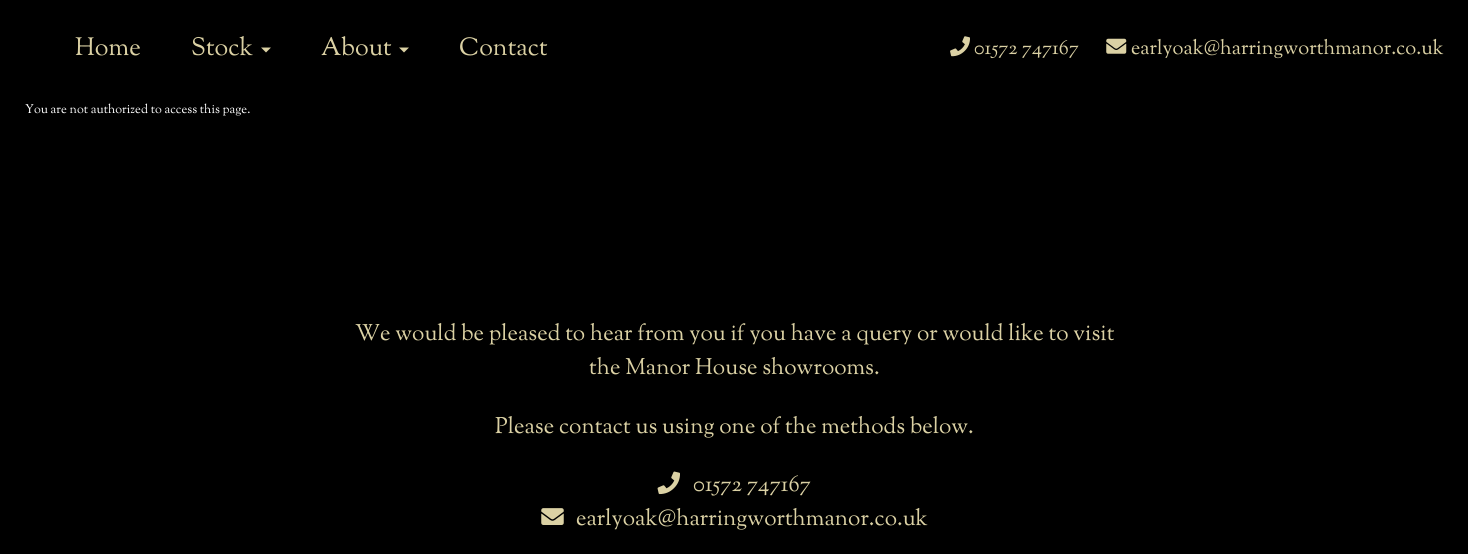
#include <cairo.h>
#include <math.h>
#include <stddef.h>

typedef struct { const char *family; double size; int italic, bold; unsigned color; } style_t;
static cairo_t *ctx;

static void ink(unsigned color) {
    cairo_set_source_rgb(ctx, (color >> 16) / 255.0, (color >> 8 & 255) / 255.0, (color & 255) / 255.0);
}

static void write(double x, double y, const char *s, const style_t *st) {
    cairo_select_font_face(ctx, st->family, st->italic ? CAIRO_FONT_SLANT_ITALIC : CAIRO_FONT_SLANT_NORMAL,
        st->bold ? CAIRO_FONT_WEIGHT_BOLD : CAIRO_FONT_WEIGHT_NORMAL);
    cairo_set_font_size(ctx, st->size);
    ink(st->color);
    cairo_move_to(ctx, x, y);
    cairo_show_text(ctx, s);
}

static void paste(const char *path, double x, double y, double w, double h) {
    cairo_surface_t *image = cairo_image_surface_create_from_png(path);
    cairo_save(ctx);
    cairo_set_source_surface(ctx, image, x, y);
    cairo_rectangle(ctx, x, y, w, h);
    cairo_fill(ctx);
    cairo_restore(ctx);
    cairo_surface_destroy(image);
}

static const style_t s1 = {"Sorts Mill Goudy", 25, 0, 0, 0xdbd1a4};
static const style_t s2 = {"Sorts Mill Goudy", 20, 0, 0, 0xdbd1a4};
static const style_t s3 = {"Sorts Mill Goudy", 12.5, 0, 0, 0xffffff};
static const style_t s4 = {"Sorts Mill Goudy", 22.5, 0, 0, 0xdbd1a4};

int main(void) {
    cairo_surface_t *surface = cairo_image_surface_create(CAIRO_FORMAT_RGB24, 1468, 554);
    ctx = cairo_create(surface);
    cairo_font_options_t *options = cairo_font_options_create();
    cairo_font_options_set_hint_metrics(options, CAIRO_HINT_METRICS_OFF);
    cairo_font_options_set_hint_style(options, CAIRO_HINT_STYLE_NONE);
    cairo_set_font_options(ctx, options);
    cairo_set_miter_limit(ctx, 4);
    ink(0x000000);
    cairo_paint(ctx);
    write(75, 55, "Home", &s1);
    write(191, 55, "Stock", &s1);
    cairo_new_path(ctx);
    cairo_move_to(ctx, 261, 47.5);
    cairo_line_to(ctx, 271, 47.5);
    cairo_line_to(ctx, 266, 52.5);
    cairo_close_path(ctx);
    cairo_fill(ctx);
    write(321, 55, "About", &s1);
    cairo_new_path(ctx);
    cairo_move_to(ctx, 399, 47.5);
    cairo_line_to(ctx, 409, 47.5);
    cairo_line_to(ctx, 404, 52.5);
    cairo_close_path(ctx);
    cairo_fill(ctx);
    write(459, 55, "Contact", &s1);
    paste("pic1.png", 950, 36, 20, 21);
    write(974, 54, "01572 747167", &s2);
    paste("pic2.png", 1106, 38, 21, 16);
    write(1131, 54, "earlyoak@harringworthmanor.co.uk", &s2);
    write(25, 113, "You are not authorized to access this page.", &s3);
    write(355, 340, "We would be pleased to hear from you if you have a query or would like to visit", &s4);
    write(589, 374, "the Manor House showrooms.", &s4);
    write(495, 433, "Please contact us using one of the methods below.", &s4);
    paste("pic3.png", 657, 471, 23, 24);
    write(693, 491, "01572 747167", &s4);
    paste("pic4.png", 541, 508, 23, 17);
    write(576, 525, "earlyoak@harringworthmanor.co.uk", &s4);
    cairo_surface_write_to_png(surface, "screenshot.png");
    cairo_font_options_destroy(options);
    cairo_destroy(ctx);
    cairo_surface_destroy(surface);
    return 0;
}
